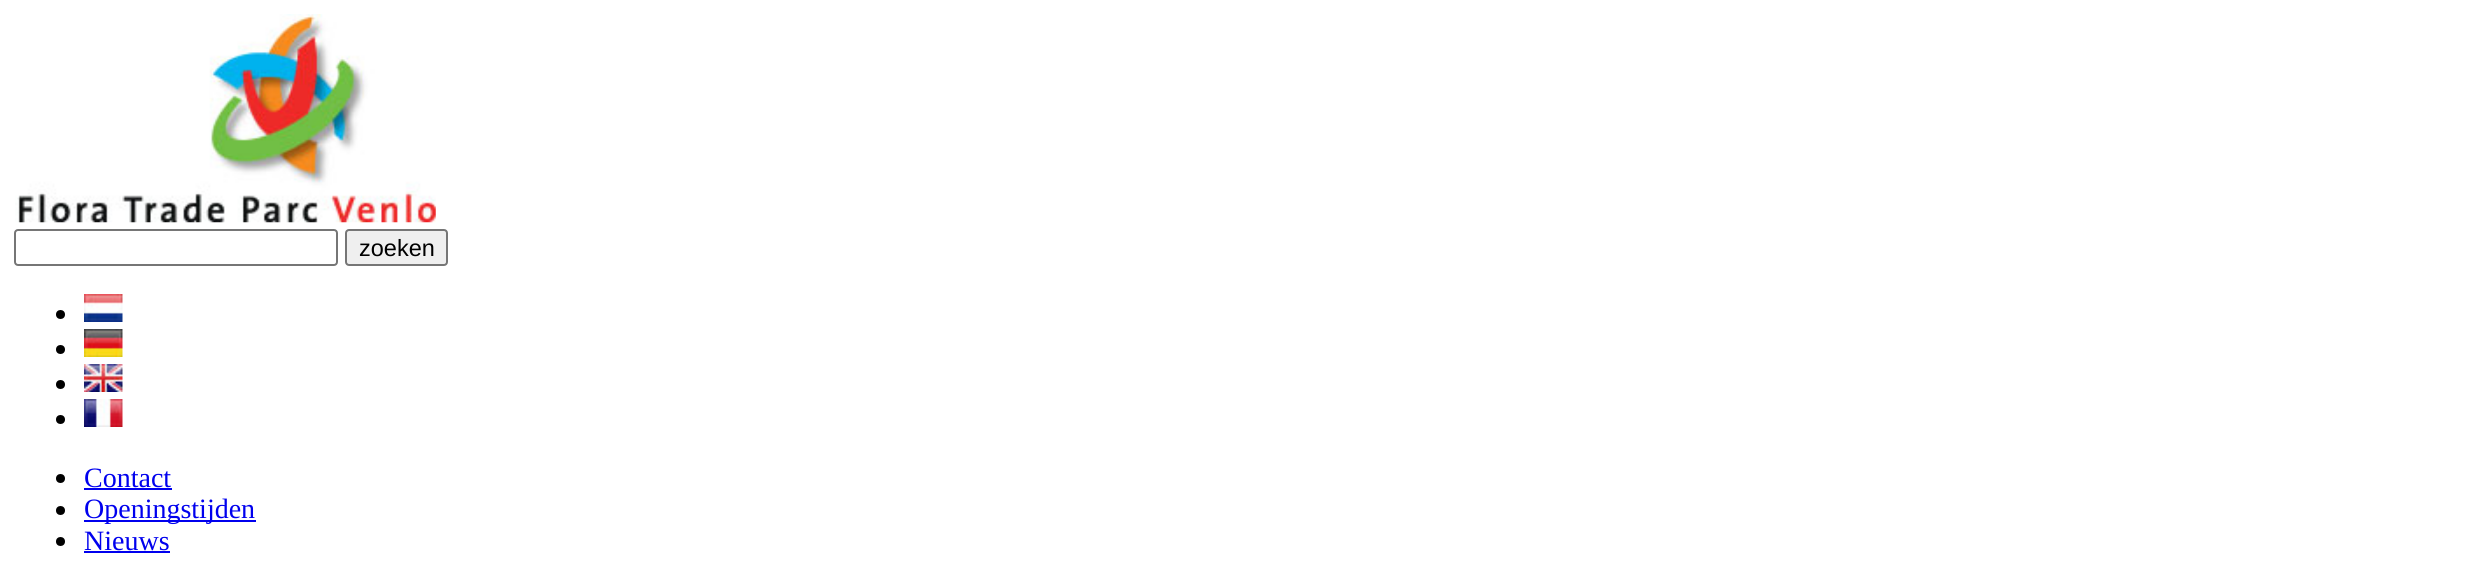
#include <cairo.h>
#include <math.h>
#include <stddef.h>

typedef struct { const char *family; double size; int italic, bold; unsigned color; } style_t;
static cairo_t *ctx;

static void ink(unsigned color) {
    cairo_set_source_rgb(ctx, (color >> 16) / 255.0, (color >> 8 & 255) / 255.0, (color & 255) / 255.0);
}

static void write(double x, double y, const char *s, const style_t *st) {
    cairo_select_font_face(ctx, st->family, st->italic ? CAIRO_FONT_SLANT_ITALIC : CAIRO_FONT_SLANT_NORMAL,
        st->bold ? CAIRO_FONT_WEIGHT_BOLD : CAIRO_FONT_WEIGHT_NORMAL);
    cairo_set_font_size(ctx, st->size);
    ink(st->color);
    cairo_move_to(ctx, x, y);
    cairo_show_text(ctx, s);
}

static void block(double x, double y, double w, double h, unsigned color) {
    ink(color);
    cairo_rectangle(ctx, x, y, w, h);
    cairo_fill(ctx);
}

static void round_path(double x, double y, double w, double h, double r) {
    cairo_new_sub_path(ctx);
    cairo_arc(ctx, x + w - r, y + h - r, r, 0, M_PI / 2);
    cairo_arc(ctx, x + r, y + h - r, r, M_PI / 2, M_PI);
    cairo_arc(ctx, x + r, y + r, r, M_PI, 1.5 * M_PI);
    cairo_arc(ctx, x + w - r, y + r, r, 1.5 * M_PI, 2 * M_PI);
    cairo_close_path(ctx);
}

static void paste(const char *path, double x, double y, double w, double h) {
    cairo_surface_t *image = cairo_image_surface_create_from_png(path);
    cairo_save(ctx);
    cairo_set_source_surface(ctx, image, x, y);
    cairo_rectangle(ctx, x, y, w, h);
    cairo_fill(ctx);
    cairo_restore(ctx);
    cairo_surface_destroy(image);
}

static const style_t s1 = {"Liberation Sans", 23.5, 0, 0, 0x000000};
static const style_t s2 = {"Liberation Serif", 28, 0, 0, 0x0000ee};

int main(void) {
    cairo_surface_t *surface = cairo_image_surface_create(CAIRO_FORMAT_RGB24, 2488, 567);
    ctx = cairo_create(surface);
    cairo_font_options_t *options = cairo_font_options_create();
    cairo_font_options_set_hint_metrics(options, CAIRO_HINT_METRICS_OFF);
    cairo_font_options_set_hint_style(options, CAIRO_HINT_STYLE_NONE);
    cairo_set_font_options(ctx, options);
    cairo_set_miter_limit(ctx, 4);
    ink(0xffffff);
    cairo_paint(ctx);
    paste("pic1.png", 15, 14, 421, 209);
    round_path(15, 230, 322, 35, 3);
    ink(0x767676);
    cairo_stroke(ctx);
    ink(0xefefef);
    round_path(346, 230, 101, 35, 3);
    cairo_fill_preserve(ctx);
    ink(0x767676);
    cairo_stroke(ctx);
    write(359, 256, "zoeken", &s1);
    cairo_new_path(ctx);
    cairo_arc(ctx, 60.5, 314.5, 4.5, 0, 2 * M_PI);
    cairo_fill(ctx);
    paste("pic2.png", 84, 294, 39, 28);
    cairo_arc(ctx, 60.5, 349.5, 4.5, 0, 2 * M_PI);
    cairo_fill(ctx);
    paste("pic3.png", 84, 329, 39, 28);
    cairo_arc(ctx, 60.5, 384.5, 4.5, 0, 2 * M_PI);
    cairo_fill(ctx);
    paste("pic4.png", 84, 364, 39, 28);
    cairo_arc(ctx, 60.5, 419.5, 4.5, 0, 2 * M_PI);
    cairo_fill(ctx);
    paste("pic5.png", 84, 399, 39, 28);
    cairo_arc(ctx, 60.5, 478.5, 4.5, 0, 2 * M_PI);
    cairo_fill(ctx);
    write(84, 487, "Contact", &s2);
    block(84, 488, 88, 2, 0x0000ee);
    ink(0x000000);
    cairo_new_path(ctx);
    cairo_arc(ctx, 60.5, 510.5, 4.5, 0, 2 * M_PI);
    cairo_fill(ctx);
    block(84, 520, 172, 2, 0x0000ee);
    write(84, 518, "Openingstijden", &s2);
    ink(0x000000);
    cairo_new_path(ctx);
    cairo_arc(ctx, 60.5, 541.5, 4.5, 0, 2 * M_PI);
    cairo_fill(ctx);
    write(84, 550, "Nieuws", &s2);
    block(84, 551, 86, 2, 0x0000ee);
    cairo_surface_write_to_png(surface, "screenshot.png");
    cairo_font_options_destroy(options);
    cairo_destroy(ctx);
    cairo_surface_destroy(surface);
    return 0;
}
